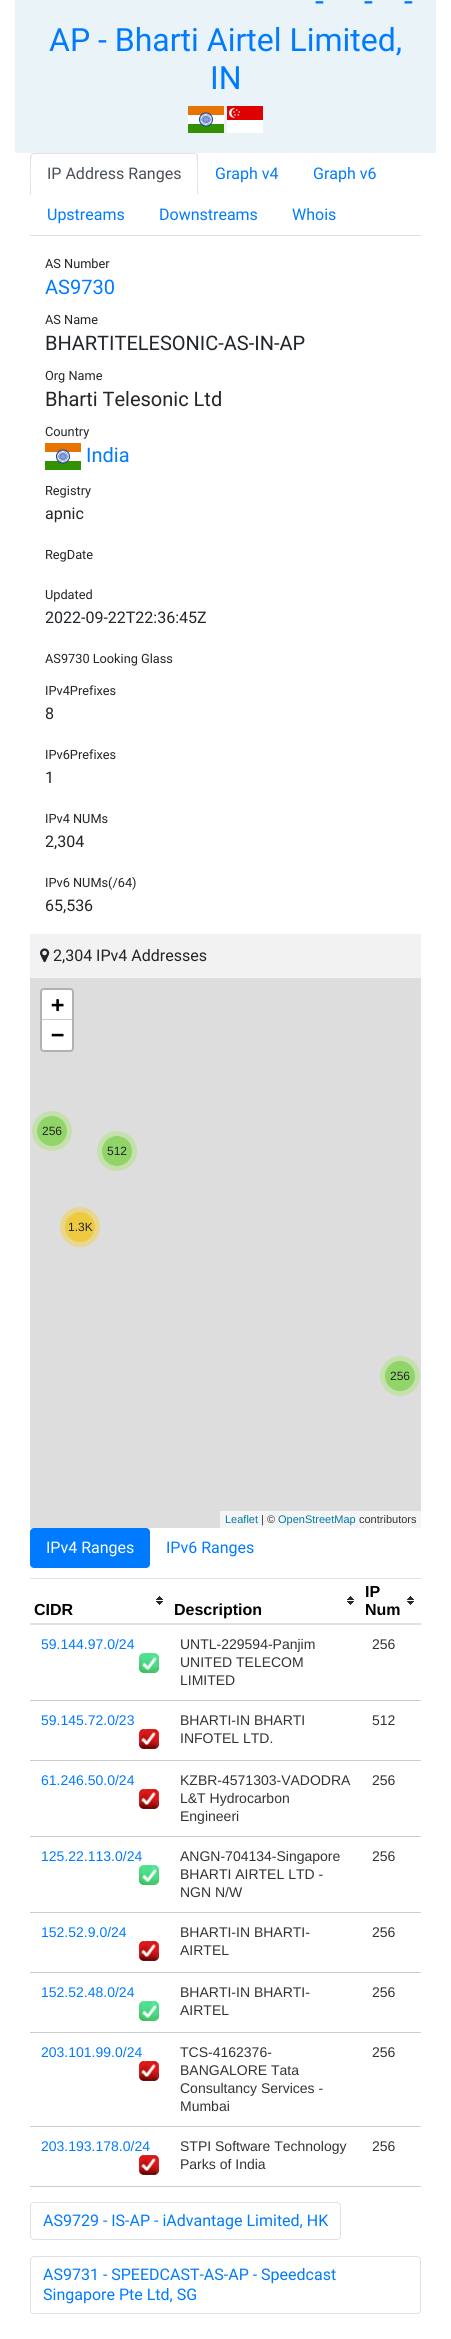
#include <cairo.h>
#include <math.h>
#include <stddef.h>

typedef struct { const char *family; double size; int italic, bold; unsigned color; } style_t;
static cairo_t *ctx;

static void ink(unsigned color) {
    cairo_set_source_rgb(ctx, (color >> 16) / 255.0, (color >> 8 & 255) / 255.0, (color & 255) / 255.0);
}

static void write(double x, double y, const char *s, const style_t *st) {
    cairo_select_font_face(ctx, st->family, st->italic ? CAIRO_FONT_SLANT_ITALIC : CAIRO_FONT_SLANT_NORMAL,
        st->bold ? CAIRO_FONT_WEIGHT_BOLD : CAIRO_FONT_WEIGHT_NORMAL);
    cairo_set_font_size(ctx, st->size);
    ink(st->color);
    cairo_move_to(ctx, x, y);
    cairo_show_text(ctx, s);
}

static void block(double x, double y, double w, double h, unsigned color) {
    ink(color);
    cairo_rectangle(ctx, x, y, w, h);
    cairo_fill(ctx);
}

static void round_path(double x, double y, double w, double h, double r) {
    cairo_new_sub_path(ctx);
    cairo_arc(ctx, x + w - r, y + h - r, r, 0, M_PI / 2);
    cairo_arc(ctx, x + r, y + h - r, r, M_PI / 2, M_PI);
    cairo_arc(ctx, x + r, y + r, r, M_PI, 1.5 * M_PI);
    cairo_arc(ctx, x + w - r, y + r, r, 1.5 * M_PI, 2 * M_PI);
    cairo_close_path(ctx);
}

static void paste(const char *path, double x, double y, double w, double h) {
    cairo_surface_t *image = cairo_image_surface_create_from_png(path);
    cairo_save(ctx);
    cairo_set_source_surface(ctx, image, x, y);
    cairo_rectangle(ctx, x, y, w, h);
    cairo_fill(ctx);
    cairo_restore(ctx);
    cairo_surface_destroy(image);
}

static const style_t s1 = {"Roboto", 32, 0, 0, 0x007bff};
static const style_t s2 = {"Roboto", 16, 0, 0, 0x495057};
static const style_t s3 = {"Roboto", 16, 0, 0, 0x007bff};
static const style_t s4 = {"Roboto", 12.75, 0, 0, 0x212529};
static const style_t s5 = {"Roboto", 20, 0, 0, 0x007bff};
static const style_t s6 = {"Roboto", 20, 0, 0, 0x212529};
static const style_t s7 = {"Roboto", 16, 0, 0, 0x212529};
static const style_t s8 = {"DejaVu Sans Mono", 22, 0, 1, 0x000000};
static const style_t s9 = {"Liberation Sans", 11, 0, 0, 0x0078a8};
static const style_t s10 = {"Liberation Sans", 11, 0, 0, 0x333333};
static const style_t s11 = {"Liberation Sans", 12, 0, 0, 0x212529};
static const style_t s12 = {"Roboto", 16, 0, 0, 0xffffff};
static const style_t s13 = {"Liberation Sans", 16, 0, 1, 0x000000};
static const style_t s14 = {"Liberation Sans", 14, 0, 0, 0x007bff};
static const style_t s15 = {"Liberation Sans", 14, 0, 0, 0x333333};

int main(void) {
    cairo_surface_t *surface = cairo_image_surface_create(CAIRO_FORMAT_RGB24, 451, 2339);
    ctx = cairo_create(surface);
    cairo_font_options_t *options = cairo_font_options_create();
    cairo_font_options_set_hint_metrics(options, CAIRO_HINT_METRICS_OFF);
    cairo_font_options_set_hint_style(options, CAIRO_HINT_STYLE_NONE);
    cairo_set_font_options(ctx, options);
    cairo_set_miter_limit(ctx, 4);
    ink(0xffffff);
    cairo_paint(ctx);
    block(15, 0, 421, 153, 0xeaf3f8);
    write(315, 12, "-", &s1);
    write(364, 12, "-", &s1);
    write(404, 12, "-", &s1);
    write(49, 51, "AP - Bharti Airtel Limited,", &s1);
    write(210, 89, "IN", &s1);
    paste("pic1.png", 188, 106, 36, 27);
    paste("pic2.png", 227, 106, 36, 27);
    block(30, 235, 391, 1, 0xdee2e6);
    cairo_new_path(ctx);
    cairo_move_to(ctx, 34, 153);
    cairo_line_to(ctx, 31, 154);
    cairo_line_to(ctx, 32, 155);
    cairo_line_to(ctx, 34, 154);
    cairo_line_to(ctx, 194, 154);
    cairo_line_to(ctx, 196, 155);
    cairo_line_to(ctx, 197, 154);
    cairo_line_to(ctx, 194, 153);
    cairo_close_path(ctx);
    cairo_fill(ctx);
    cairo_new_path(ctx);
    cairo_move_to(ctx, 198, 195);
    cairo_line_to(ctx, 198, 157);
    cairo_curve_to(ctx, 198, 156, 198, 155, 197, 154);
    cairo_line_to(ctx, 196, 155);
    cairo_curve_to(ctx, 198, 157, 197, 189, 197, 194);
    cairo_close_path(ctx);
    cairo_fill(ctx);
    ink(0xffffff);
    cairo_new_path(ctx);
    cairo_move_to(ctx, 198, 195);
    cairo_line_to(ctx, 197, 194);
    cairo_line_to(ctx, 31, 194);
    cairo_line_to(ctx, 30, 195);
    cairo_close_path(ctx);
    cairo_fill(ctx);
    ink(0xdee2e6);
    cairo_new_path(ctx);
    cairo_move_to(ctx, 30, 195);
    cairo_line_to(ctx, 31, 194);
    cairo_curve_to(ctx, 31, 189, 30, 157, 32, 155);
    cairo_line_to(ctx, 31, 154);
    cairo_line_to(ctx, 30, 157);
    cairo_close_path(ctx);
    cairo_fill(ctx);
    write(47, 179, "IP Address Ranges", &s2);
    write(215, 179, "Graph v4", &s3);
    write(313, 179, "Graph v6", &s3);
    write(47, 220, "Upstreams", &s3);
    write(159, 220, "Downstreams", &s3);
    write(292, 220, "Whois", &s3);
    write(45, 268, "AS Number", &s4);
    write(45, 294, "AS9730", &s5);
    write(45, 324, "AS Name", &s4);
    write(45, 350, "BHARTITELESONIC-AS-IN-AP", &s6);
    write(45, 380, "Org Name", &s4);
    write(45, 406, "Bharti Telesonic Ltd", &s6);
    write(45, 436, "Country", &s4);
    paste("pic1.png", 45, 443, 36, 27);
    write(86, 462, "India", &s5);
    write(45, 495, "Registry", &s4);
    write(45, 519, "apnic", &s7);
    write(45, 559, "RegDate", &s4);
    write(45, 599, "Updated", &s4);
    write(45, 623, "2022-09-22T22:36:45Z", &s7);
    write(45, 663, "AS9730 Looking Glass", &s4);
    write(45, 695, "IPv4Prefixes", &s4);
    write(45, 719, "8", &s7);
    write(45, 759, "IPv6Prefixes", &s4);
    write(45, 783, "1", &s7);
    write(45, 823, "IPv4 NUMs", &s4);
    write(45, 847, "2,304", &s7);
    write(45, 887, "IPv6 NUMs(/64)", &s4);
    write(45, 911, "65,536", &s7);
    block(30, 934, 391, 44, 0xf2f2f2);
    paste("pic3.png", 40, 948, 10, 15);
    write(53, 961, "2,304 IPv4 Addresses", &s7);
    block(30, 978, 391, 550, 0xdddddd);
    round_path(41, 989, 32, 62, 3);
    ink(0xb1b1b1);
    cairo_stroke(ctx);
    ink(0xffffff);
    cairo_new_path(ctx);
    cairo_move_to(ctx, 44, 990);
    cairo_line_to(ctx, 70, 990);
    cairo_curve_to(ctx, 71, 990, 72, 991, 72, 992);
    cairo_line_to(ctx, 72, 1020);
    cairo_line_to(ctx, 42, 1020);
    cairo_line_to(ctx, 42, 992);
    cairo_curve_to(ctx, 42, 991, 43, 990, 44, 990);
    cairo_close_path(ctx);
    cairo_fill(ctx);
    block(42, 1019, 30, 1, 0xcccccc);
    write(51, 1012, "+", &s8);
    ink(0xffffff);
    cairo_new_path(ctx);
    cairo_move_to(ctx, 42, 1020);
    cairo_line_to(ctx, 72, 1020);
    cairo_line_to(ctx, 72, 1048);
    cairo_curve_to(ctx, 72, 1049, 71, 1050, 70, 1050);
    cairo_line_to(ctx, 44, 1050);
    cairo_curve_to(ctx, 43, 1050, 42, 1049, 42, 1048);
    cairo_close_path(ctx);
    cairo_fill(ctx);
    write(51, 1042, "−", &s8);
    block(220, 1511, 201, 17, 0xf5f5f5);
    write(225, 1523, "Leaflet", &s9);
    write(261, 1523, "| ©", &s10);
    write(278, 1523, "OpenStreetMap", &s9);
    write(359, 1523, "contributors", &s10);
    ink(0xc5e0ac);
    cairo_new_path(ctx);
    cairo_arc(ctx, 52, 1131, 20, 0, 2 * M_PI);
    cairo_fill(ctx);
    ink(0x91d467);
    cairo_arc(ctx, 52, 1131, 15, 0, 2 * M_PI);
    cairo_fill(ctx);
    write(42, 1135, "256", &s11);
    ink(0xc5e0ac);
    cairo_new_path(ctx);
    cairo_arc(ctx, 117, 1151, 20, 0, 2 * M_PI);
    cairo_fill(ctx);
    ink(0x91d467);
    cairo_arc(ctx, 117, 1151, 15, 0, 2 * M_PI);
    cairo_fill(ctx);
    write(107, 1155, "512", &s11);
    ink(0xe9d78d);
    cairo_new_path(ctx);
    cairo_arc(ctx, 80, 1227, 20, 0, 2 * M_PI);
    cairo_fill(ctx);
    ink(0xedca40);
    cairo_arc(ctx, 80, 1227, 15, 0, 2 * M_PI);
    cairo_fill(ctx);
    write(68, 1231, "1.3K", &s11);
    ink(0xc5e0ac);
    cairo_new_path(ctx);
    cairo_arc(ctx, 400, 1376, 20, 0, 2 * M_PI);
    cairo_fill(ctx);
    ink(0x91d467);
    cairo_arc(ctx, 400, 1376, 15, 0, 2 * M_PI);
    cairo_fill(ctx);
    write(390, 1380, "256", &s11);
    ink(0x007bff);
    round_path(30, 1528, 120, 40, 4);
    cairo_fill(ctx);
    write(46, 1553, "IPv4 Ranges", &s12);
    write(166, 1553, "IPv6 Ranges", &s3);
    paste("pic4.png", 156, 1596, 7, 9);
    write(34, 1615, "CIDR", &s13);
    paste("pic4.png", 347, 1596, 7, 9);
    write(174, 1615, "Description", &s13);
    paste("pic4.png", 407, 1596, 7, 9);
    block(30, 1578, 391, 1, 0xdee2e6);
    block(30, 1623, 391, 2, 0xdee2e6);
    write(365, 1597, "IP", &s13);
    write(365, 1615, "Num", &s13);
    write(41, 1649, "59.144.97.0/24", &s14);
    paste("pic5.png", 139, 1653, 20, 20);
    write(180, 1649, "UNTL-229594-Panjim", &s15);
    write(180, 1667, "UNITED TELECOM", &s15);
    write(180, 1685, "LIMITED", &s15);
    block(30, 1700, 391, 1, 0xcccccc);
    write(372, 1649, "256", &s15);
    write(41, 1725, "59.145.72.0/23", &s14);
    paste("pic6.png", 139, 1729, 20, 20);
    write(180, 1725, "BHARTI-IN BHARTI", &s15);
    write(180, 1743, "INFOTEL LTD.", &s15);
    block(30, 1760, 391, 1, 0xcccccc);
    write(372, 1725, "512", &s15);
    write(41, 1785, "61.246.50.0/24", &s14);
    paste("pic6.png", 139, 1789, 20, 20);
    write(180, 1785, "KZBR-4571303-VADODRA", &s15);
    write(180, 1803, "L&T Hydrocarbon", &s15);
    write(180, 1821, "Engineeri", &s15);
    block(30, 1836, 391, 1, 0xcccccc);
    write(372, 1785, "256", &s15);
    write(41, 1861, "125.22.113.0/24", &s14);
    paste("pic5.png", 139, 1865, 20, 20);
    write(180, 1861, "ANGN-704134-Singapore", &s15);
    write(180, 1879, "BHARTI AIRTEL LTD -", &s15);
    write(180, 1897, "NGN N/W", &s15);
    block(30, 1912, 391, 1, 0xcccccc);
    write(372, 1861, "256", &s15);
    write(41, 1937, "152.52.9.0/24", &s14);
    paste("pic6.png", 139, 1941, 20, 20);
    write(180, 1937, "BHARTI-IN BHARTI-", &s15);
    write(180, 1955, "AIRTEL", &s15);
    block(30, 1972, 391, 1, 0xcccccc);
    write(372, 1937, "256", &s15);
    write(41, 1997, "152.52.48.0/24", &s14);
    paste("pic5.png", 139, 2001, 20, 20);
    write(180, 1997, "BHARTI-IN BHARTI-", &s15);
    write(180, 2015, "AIRTEL", &s15);
    block(30, 2032, 391, 1, 0xcccccc);
    write(372, 1997, "256", &s15);
    write(41, 2057, "203.101.99.0/24", &s14);
    paste("pic6.png", 139, 2061, 20, 20);
    write(180, 2057, "TCS-4162376-", &s15);
    write(180, 2075, "BANGALORE Tata", &s15);
    write(180, 2093, "Consultancy Services -", &s15);
    write(180, 2111, "Mumbai", &s15);
    block(30, 2126, 391, 1, 0xcccccc);
    write(372, 2057, "256", &s15);
    write(41, 2151, "203.193.178.0/24", &s14);
    paste("pic6.png", 139, 2155, 20, 20);
    write(180, 2151, "STPI Software Technology", &s15);
    write(180, 2169, "Parks of India", &s15);
    block(30, 2186, 391, 1, 0xcccccc);
    write(372, 2151, "256", &s15);
    round_path(30.5, 2202.5, 310, 37, 3.5);
    ink(0xdee2e6);
    cairo_set_line_width(ctx, 1);
    cairo_stroke(ctx);
    write(43, 2226, "AS9729 - IS-AP - iAdvantage Limited, HK", &s3);
    round_path(30.5, 2256.5, 390, 57, 3.5);
    ink(0xdee2e6);
    cairo_stroke(ctx);
    write(43, 2280, "AS9731 - SPEEDCAST-AS-AP - Speedcast", &s3);
    write(43, 2300, "Singapore Pte Ltd, SG", &s3);
    cairo_surface_write_to_png(surface, "screenshot.png");
    cairo_font_options_destroy(options);
    cairo_destroy(ctx);
    cairo_surface_destroy(surface);
    return 0;
}
